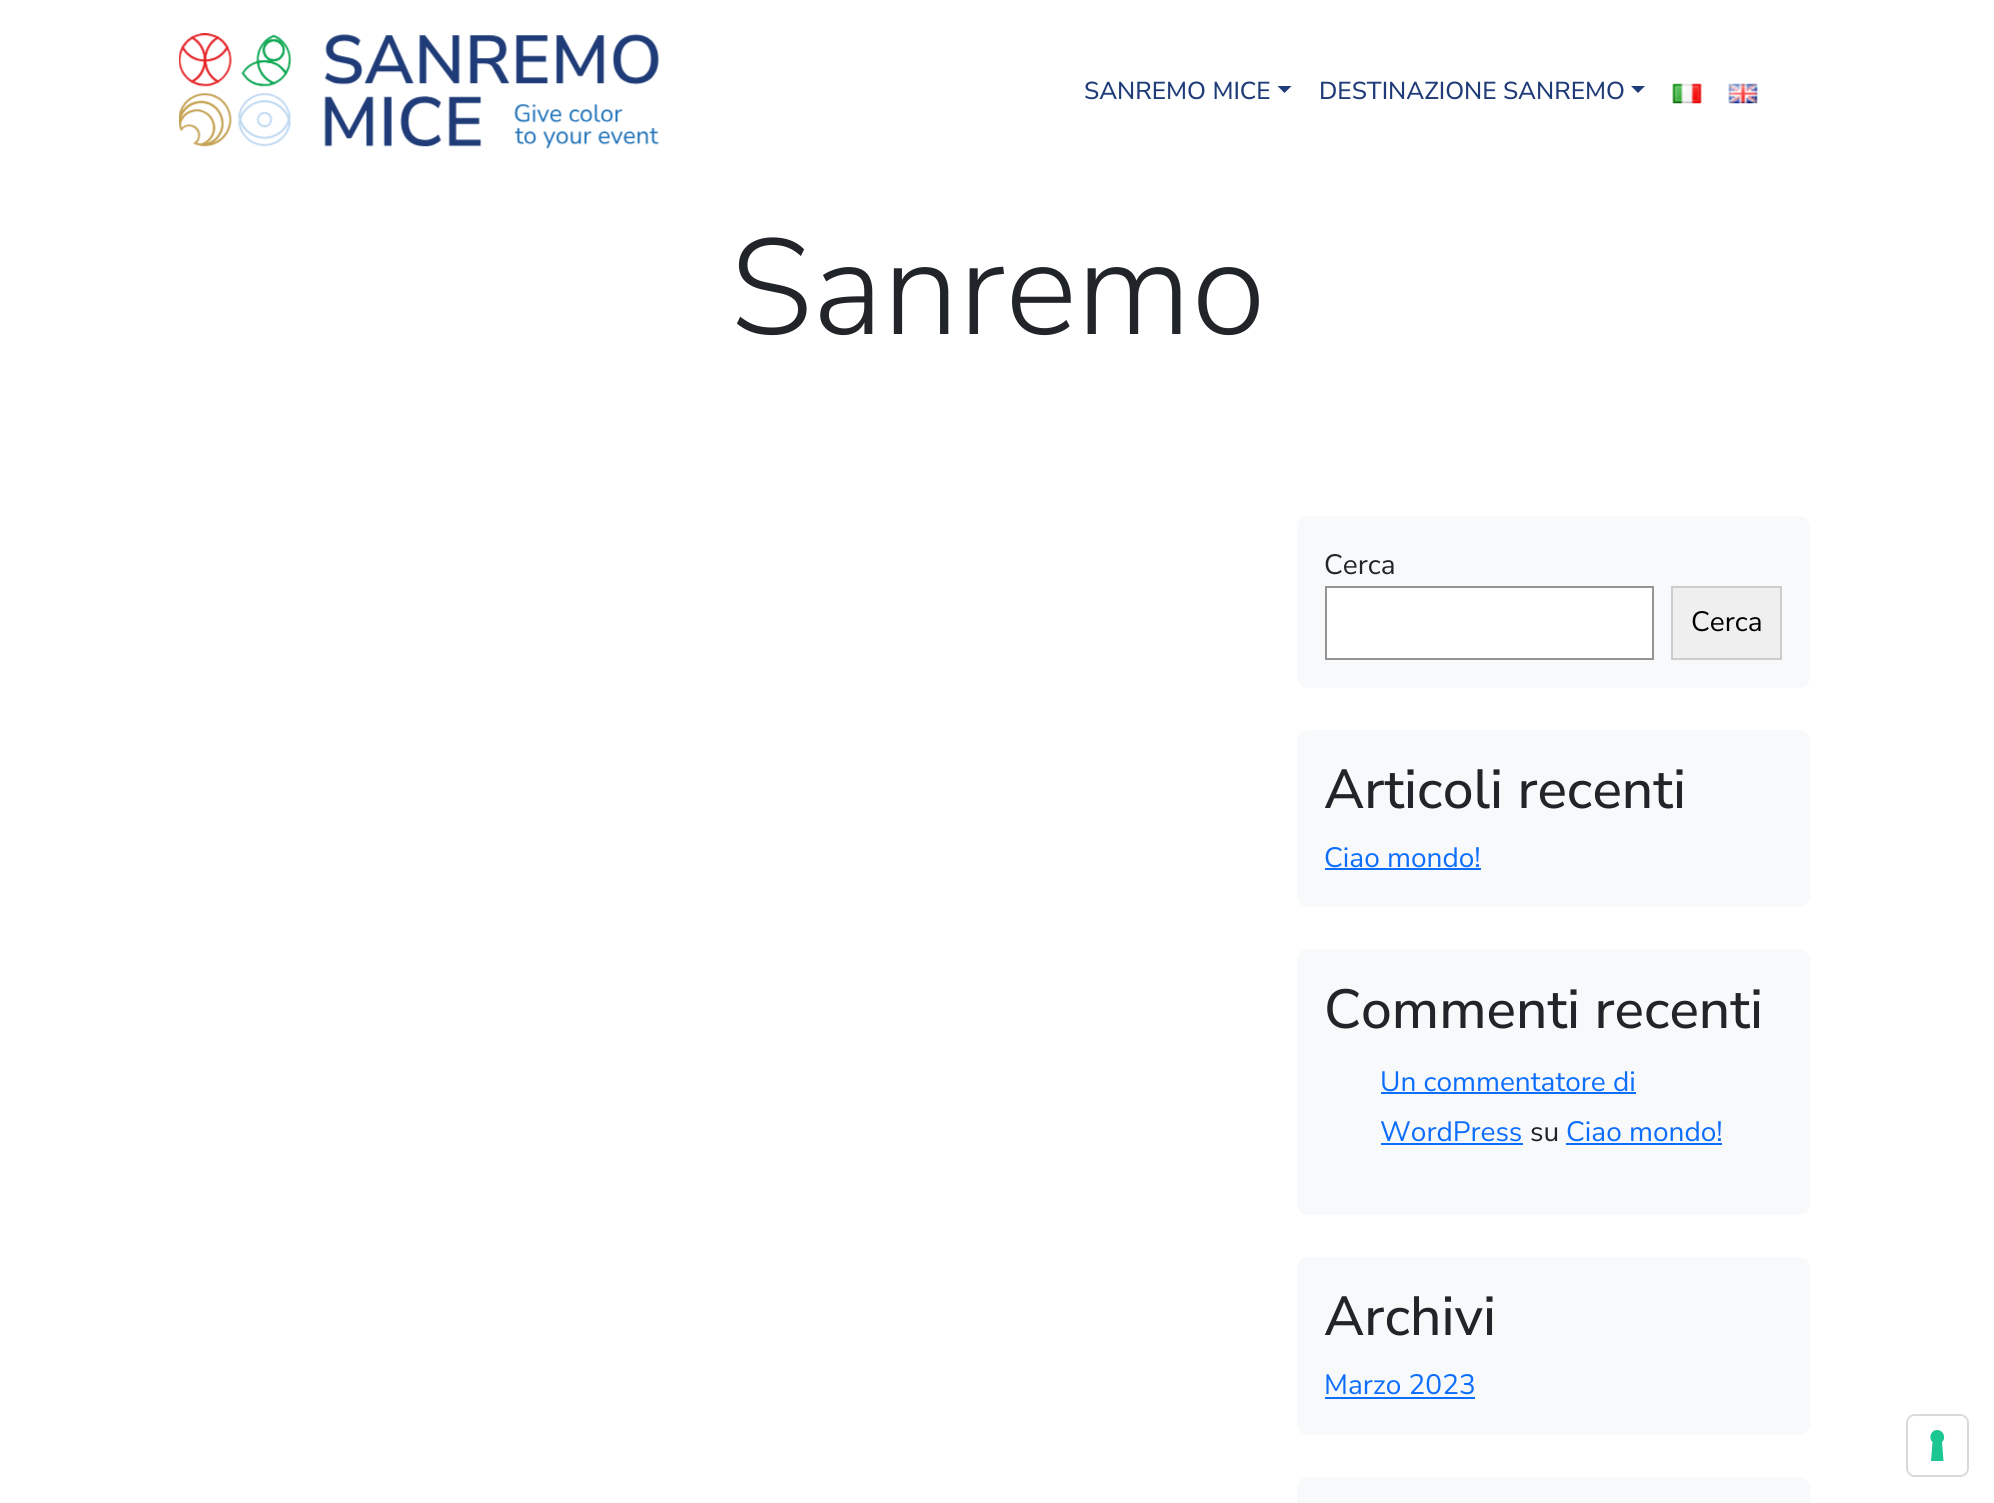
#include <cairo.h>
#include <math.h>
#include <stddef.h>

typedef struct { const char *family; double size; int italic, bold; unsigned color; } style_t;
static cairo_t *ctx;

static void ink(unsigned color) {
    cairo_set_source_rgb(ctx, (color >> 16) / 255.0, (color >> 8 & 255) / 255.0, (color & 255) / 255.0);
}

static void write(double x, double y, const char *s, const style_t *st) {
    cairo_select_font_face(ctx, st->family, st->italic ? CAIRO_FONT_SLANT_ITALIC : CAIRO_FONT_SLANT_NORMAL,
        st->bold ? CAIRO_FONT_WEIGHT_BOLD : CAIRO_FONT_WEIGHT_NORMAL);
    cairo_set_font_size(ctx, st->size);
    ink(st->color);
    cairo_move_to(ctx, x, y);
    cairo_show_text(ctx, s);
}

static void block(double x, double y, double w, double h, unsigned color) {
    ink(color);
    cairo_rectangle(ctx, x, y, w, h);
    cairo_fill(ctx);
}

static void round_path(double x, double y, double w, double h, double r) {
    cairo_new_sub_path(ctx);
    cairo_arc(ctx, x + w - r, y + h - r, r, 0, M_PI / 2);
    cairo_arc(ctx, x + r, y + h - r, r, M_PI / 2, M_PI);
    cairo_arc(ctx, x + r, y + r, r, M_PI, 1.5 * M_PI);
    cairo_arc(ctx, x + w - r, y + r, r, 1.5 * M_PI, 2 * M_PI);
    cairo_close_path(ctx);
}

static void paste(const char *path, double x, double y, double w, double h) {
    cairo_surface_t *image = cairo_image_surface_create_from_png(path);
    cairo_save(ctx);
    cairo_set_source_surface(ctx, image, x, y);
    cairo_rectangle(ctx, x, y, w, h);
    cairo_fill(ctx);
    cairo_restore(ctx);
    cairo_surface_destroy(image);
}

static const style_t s1 = {"Nunito Sans Medium", 24.5, 0, 0, 0x1f3c78};
static const style_t s2 = {"Nunito Sans Light", 135.5, 0, 0, 0x212529};
static const style_t s3 = {"Nunito Sans", 28, 0, 0, 0x212529};
static const style_t s4 = {"Nunito Sans", 28, 0, 0, 0x000000};
static const style_t s5 = {"Nunito Sans Medium", 55, 0, 0, 0x212529};
static const style_t s6 = {"Nunito Sans", 28, 0, 0, 0x0d6efd};

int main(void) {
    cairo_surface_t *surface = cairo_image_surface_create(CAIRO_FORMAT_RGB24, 1994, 1503);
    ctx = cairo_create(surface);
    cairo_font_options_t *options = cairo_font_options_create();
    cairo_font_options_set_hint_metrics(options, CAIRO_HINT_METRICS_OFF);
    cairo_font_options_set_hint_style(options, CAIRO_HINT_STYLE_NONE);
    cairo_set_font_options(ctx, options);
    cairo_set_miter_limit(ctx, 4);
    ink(0xffffff);
    cairo_paint(ctx);
    paste("pic1.png", 179, 33, 480, 116);
    write(1084, 99, "SANREMO MICE", &s1);
    cairo_new_path(ctx);
    cairo_move_to(ctx, 1277.5, 86);
    cairo_line_to(ctx, 1291.5, 86);
    cairo_line_to(ctx, 1284.5, 93);
    cairo_close_path(ctx);
    cairo_fill(ctx);
    write(1319, 99, "DESTINAZIONE SANREMO", &s1);
    cairo_new_path(ctx);
    cairo_move_to(ctx, 1631, 86);
    cairo_line_to(ctx, 1645, 86);
    cairo_line_to(ctx, 1638, 93);
    cairo_close_path(ctx);
    cairo_fill(ctx);
    paste("pic2.png", 1672, 83, 30, 21);
    paste("pic3.png", 1728, 83, 30, 21);
    write(730, 334, "Sanremo", &s2);
    ink(0xf8f9fa);
    round_path(1297, 516, 513, 172, 11);
    cairo_fill(ctx);
    write(1324, 574, "Cerca", &s3);
    ink(0xffffff);
    cairo_rectangle(ctx, 1326, 587, 327, 72);
    cairo_fill_preserve(ctx);
    ink(0x949494);
    cairo_stroke(ctx);
    ink(0xefefef);
    cairo_rectangle(ctx, 1672, 587, 109, 72);
    cairo_fill_preserve(ctx);
    ink(0xcccccc);
    cairo_stroke(ctx);
    write(1691, 631, "Cerca", &s4);
    ink(0xf8f9fa);
    round_path(1297, 730, 513, 177, 11);
    cairo_fill(ctx);
    write(1324, 808, "Articoli recenti", &s5);
    write(1324, 867, "Ciao mondo!", &s6);
    block(1325, 868, 156, 2, 0x0d6efd);
    ink(0xf8f9fa);
    round_path(1297, 949, 513, 266, 11);
    cairo_fill(ctx);
    write(1324, 1028, "Commenti recenti", &s5);
    write(1380, 1091, "Un commentatore di", &s6);
    block(1381, 1092, 255, 2, 0x0d6efd);
    write(1380, 1141, "WordPress", &s6);
    block(1381, 1143, 142, 2, 0x0d6efd);
    write(1530, 1141, "su", &s3);
    write(1566, 1141, "Ciao mondo!", &s6);
    block(1566, 1143, 156, 2, 0x0d6efd);
    ink(0xf8f9fa);
    round_path(1297, 1257, 513, 178, 11);
    cairo_fill(ctx);
    write(1324, 1335, "Archivi", &s5);
    write(1324, 1394, "Marzo 2023", &s6);
    block(1325, 1397, 150, 2, 0x0d6efd);
    ink(0xf8f9fa);
    round_path(1297, 1477, 513, 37, 11);
    cairo_fill(ctx);
    round_path(1907, 1415, 61, 61, 8);
    ink(0xd9d9d9);
    cairo_stroke(ctx);
    ink(0xffffff);
    round_path(1908, 1416, 59, 59, 7);
    cairo_fill(ctx);
    ink(0x1cc691);
    cairo_set_fill_rule(ctx, CAIRO_FILL_RULE_EVEN_ODD);
    cairo_new_path(ctx);
    cairo_move_to(ctx, 1937, 1430);
    cairo_curve_to(ctx, 1943.5, 1430, 1946.5, 1438, 1942, 1442);
    cairo_line_to(ctx, 1943.5, 1461);
    cairo_line_to(ctx, 1931, 1461);
    cairo_line_to(ctx, 1932.5, 1442);
    cairo_curve_to(ctx, 1928, 1438, 1931, 1430, 1937, 1430);
    cairo_close_path(ctx);
    cairo_fill(ctx);
    cairo_surface_write_to_png(surface, "screenshot.png");
    cairo_font_options_destroy(options);
    cairo_destroy(ctx);
    cairo_surface_destroy(surface);
    return 0;
}
